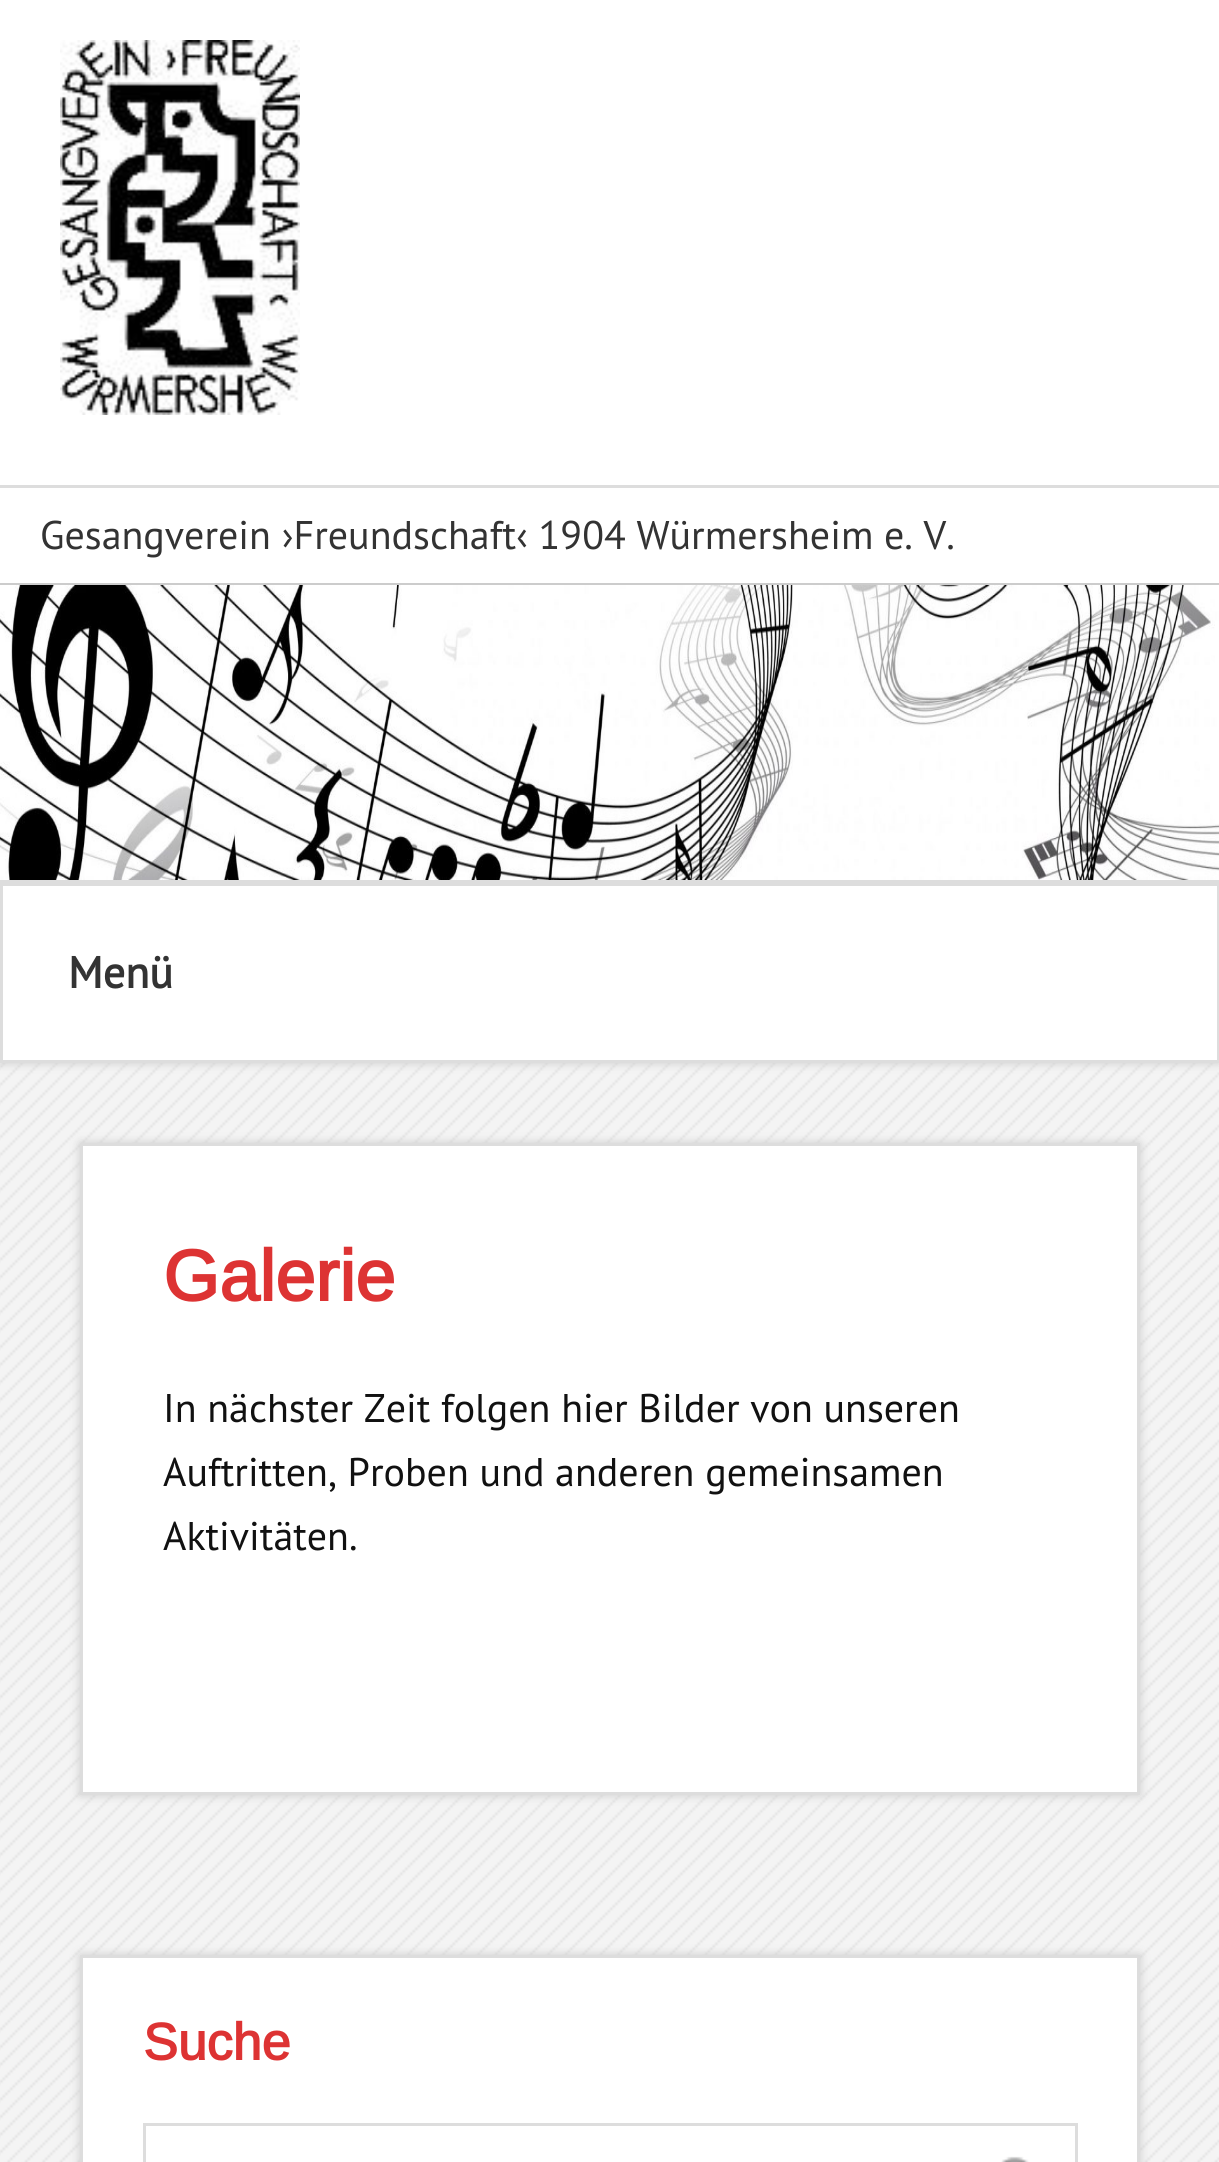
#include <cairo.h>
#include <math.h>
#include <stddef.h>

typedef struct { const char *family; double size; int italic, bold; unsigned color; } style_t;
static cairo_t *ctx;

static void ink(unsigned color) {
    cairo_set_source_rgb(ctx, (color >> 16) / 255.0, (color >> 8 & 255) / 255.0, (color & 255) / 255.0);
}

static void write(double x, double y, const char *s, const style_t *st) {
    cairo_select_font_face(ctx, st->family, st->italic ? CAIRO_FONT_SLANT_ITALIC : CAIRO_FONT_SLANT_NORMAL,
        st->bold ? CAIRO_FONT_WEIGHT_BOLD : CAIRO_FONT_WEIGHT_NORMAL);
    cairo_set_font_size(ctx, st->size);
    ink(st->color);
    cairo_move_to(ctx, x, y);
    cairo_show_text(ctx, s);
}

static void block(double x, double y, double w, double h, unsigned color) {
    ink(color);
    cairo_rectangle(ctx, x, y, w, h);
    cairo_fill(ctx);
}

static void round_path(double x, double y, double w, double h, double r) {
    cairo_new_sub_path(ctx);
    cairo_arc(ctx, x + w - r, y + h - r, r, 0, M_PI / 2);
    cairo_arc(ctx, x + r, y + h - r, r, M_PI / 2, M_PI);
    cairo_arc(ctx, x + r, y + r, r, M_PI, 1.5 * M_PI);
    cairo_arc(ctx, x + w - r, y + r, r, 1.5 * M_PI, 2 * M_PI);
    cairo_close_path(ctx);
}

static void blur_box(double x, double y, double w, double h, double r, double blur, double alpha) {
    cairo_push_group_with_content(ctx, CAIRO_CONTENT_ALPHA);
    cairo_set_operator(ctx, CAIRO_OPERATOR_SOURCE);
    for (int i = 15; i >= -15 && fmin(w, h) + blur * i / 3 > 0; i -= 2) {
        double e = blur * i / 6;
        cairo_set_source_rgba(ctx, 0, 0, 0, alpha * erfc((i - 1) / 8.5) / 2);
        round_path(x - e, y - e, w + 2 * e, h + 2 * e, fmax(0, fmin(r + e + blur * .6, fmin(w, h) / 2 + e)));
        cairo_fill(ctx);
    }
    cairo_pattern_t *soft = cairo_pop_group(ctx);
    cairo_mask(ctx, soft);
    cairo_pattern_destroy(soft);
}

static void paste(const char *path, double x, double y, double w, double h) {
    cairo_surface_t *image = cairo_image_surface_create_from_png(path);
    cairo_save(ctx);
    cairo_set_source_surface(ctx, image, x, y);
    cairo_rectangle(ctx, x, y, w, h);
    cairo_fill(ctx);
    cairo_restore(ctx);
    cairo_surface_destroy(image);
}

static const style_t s1 = {"PT Sans", 40, 0, 0, 0x333333};
static const style_t s2 = {"PT Sans", 44, 0, 1, 0x333333};
static const style_t s3 = {"Arimo", 72, 0, 1, 0xdd3333};
static const style_t s4 = {"PT Sans", 40, 0, 0, 0x111111};
static const style_t s5 = {"Arimo", 52, 0, 1, 0xdd3333};

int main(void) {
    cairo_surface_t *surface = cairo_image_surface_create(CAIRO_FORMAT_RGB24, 1219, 2162);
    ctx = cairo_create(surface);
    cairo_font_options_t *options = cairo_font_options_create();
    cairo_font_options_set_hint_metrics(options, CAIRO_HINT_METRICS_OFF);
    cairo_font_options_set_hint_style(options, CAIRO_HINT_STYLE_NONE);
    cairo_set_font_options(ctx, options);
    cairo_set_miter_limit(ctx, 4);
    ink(0xffffff);
    cairo_paint(ctx);
    paste("pic1.png", 0, 1063, 1219, 1099);
    paste("pic2.png", 60, 40, 240, 375);
    block(0, 485, 1219, 3, 0xdddddd);
    write(40, 549, "Gesangverein ›Freundschaft‹ 1904 Würmersheim e. V.", &s1);
    block(0, 583, 1219, 2, 0xcccccc);
    ink(0xcccccc);
    blur_box(0, 883, 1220, 180, 0, 5, 1);
    paste("pic3.png", 0, 585, 1219, 295);
    block(0, 880, 1219, 3, 0xdddddd);
    ink(0xffffff);
    cairo_rectangle(ctx, 1.5, 884.5, 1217, 177);
    cairo_fill_preserve(ctx);
    ink(0xdddddd);
    cairo_set_line_width(ctx, 3);
    cairo_stroke(ctx);
    write(68, 988, "Menü", &s2);
    ink(0xcccccc);
    blur_box(80, 1143, 1060, 652, 0, 5, 1);
    ink(0xffffff);
    cairo_rectangle(ctx, 81.5, 1144.5, 1057, 649);
    cairo_fill_preserve(ctx);
    ink(0xdddddd);
    cairo_stroke(ctx);
    write(163, 1301, "Galerie", &s3);
    write(163, 1422, "In nächster Zeit folgen hier Bilder von unseren", &s4);
    write(163, 1486, "Auftritten, Proben und anderen gemeinsamen", &s4);
    write(163, 1550, "Aktivitäten.", &s4);
    ink(0xcccccc);
    blur_box(80, 1955, 1060, 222, 0, 5, 1);
    ink(0xffffff);
    cairo_rectangle(ctx, 81.5, 1956.5, 1057, 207);
    cairo_fill_preserve(ctx);
    ink(0xdddddd);
    cairo_stroke(ctx);
    write(143, 2060, "Suche", &s5);
    cairo_rectangle(ctx, 144.5, 2124.5, 932, 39);
    ink(0xdddddd);
    cairo_stroke(ctx);
    paste("pic4.png", 1001, 2156, 28, 6);
    cairo_surface_write_to_png(surface, "screenshot.png");
    cairo_font_options_destroy(options);
    cairo_destroy(ctx);
    cairo_surface_destroy(surface);
    return 0;
}
